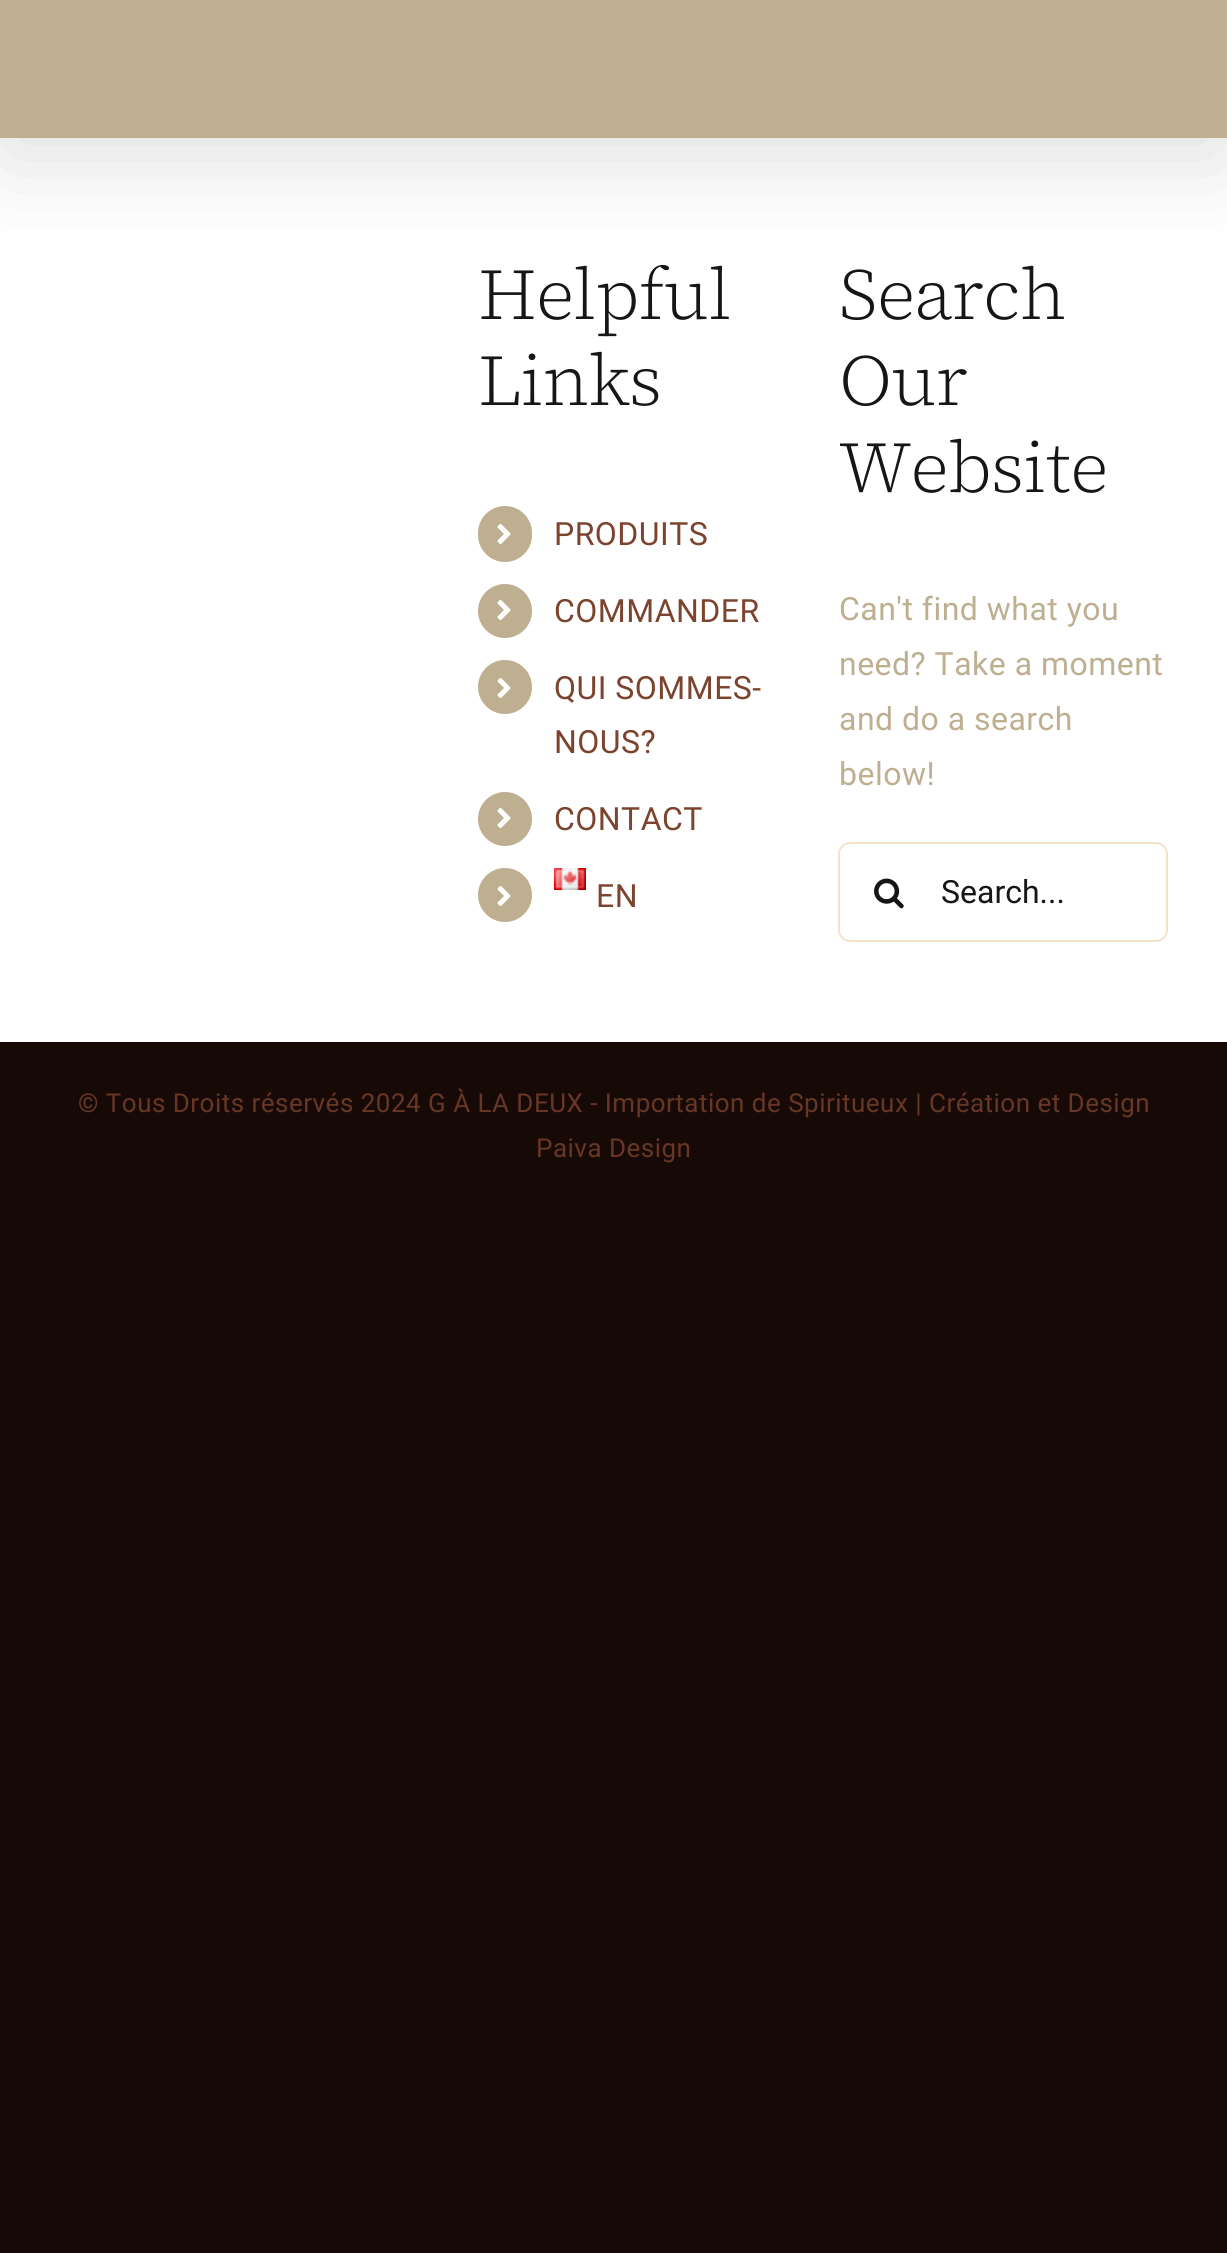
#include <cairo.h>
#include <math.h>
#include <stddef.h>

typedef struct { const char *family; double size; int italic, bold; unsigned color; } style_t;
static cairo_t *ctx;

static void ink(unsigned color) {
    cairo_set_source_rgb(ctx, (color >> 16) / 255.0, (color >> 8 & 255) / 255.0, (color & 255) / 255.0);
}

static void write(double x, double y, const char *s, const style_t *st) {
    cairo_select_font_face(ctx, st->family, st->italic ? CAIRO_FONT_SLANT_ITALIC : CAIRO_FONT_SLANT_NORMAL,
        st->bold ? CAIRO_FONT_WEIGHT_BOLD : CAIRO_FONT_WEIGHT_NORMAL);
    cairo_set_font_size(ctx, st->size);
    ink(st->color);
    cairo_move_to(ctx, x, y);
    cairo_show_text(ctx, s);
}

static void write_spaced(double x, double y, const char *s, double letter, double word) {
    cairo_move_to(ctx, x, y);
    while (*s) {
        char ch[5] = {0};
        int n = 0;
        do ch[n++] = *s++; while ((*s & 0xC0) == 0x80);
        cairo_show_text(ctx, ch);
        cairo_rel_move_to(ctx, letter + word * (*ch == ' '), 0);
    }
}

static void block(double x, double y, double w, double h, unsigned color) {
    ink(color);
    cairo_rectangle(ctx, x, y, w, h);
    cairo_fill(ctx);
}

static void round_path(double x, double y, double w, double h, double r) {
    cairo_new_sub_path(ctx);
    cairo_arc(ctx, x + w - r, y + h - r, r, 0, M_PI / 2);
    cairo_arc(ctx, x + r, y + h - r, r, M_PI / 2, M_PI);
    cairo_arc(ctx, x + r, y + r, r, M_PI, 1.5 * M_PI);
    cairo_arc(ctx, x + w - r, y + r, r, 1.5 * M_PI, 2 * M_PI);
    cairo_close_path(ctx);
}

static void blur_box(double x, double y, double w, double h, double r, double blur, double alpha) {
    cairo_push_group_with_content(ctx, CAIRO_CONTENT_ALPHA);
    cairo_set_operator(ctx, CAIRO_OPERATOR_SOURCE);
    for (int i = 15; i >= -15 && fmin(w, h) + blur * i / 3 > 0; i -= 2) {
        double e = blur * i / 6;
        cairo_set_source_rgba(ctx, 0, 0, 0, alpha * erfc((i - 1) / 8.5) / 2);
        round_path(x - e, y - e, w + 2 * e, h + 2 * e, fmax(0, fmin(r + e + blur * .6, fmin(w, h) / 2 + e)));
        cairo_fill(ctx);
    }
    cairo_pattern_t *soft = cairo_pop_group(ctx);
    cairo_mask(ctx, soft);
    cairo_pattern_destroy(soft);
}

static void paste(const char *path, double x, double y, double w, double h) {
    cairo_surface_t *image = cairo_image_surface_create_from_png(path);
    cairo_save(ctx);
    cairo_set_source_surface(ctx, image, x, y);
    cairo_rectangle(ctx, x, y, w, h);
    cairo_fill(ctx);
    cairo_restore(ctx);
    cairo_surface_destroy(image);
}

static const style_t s1 = {"Roboto", 32, 0, 0, 0x141617};

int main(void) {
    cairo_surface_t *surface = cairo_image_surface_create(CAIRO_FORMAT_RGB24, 1227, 2253);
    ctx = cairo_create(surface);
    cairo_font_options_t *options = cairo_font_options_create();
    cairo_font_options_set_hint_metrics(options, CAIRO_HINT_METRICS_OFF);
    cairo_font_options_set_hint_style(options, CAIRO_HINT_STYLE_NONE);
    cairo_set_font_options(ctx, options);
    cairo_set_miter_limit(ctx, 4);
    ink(0x160906);
    cairo_paint(ctx);
    block(0, 138, 1227, 904, 0xffffff);
    ink(0x000000);
    blur_box(4, 24, 1220, 130, 0, 50, 0.14);
    block(0, 0, 1227, 138, 0xbfaf91);
    cairo_select_font_face(ctx, "Source Serif 4 Light", CAIRO_FONT_SLANT_NORMAL, CAIRO_FONT_WEIGHT_NORMAL);
    cairo_set_font_size(ctx, 72);
    ink(0x141617);
    write_spaced(478, 319, "Helpful", -1, 0);
    write_spaced(478, 405, "Links", -1, 0);
    ink(0xbfaf91);
    round_path(478, 506, 54, 56, 27);
    cairo_fill(ctx);
    paste("pic1.png", 497, 524, 14, 20);
    cairo_select_font_face(ctx, "Roboto", CAIRO_FONT_SLANT_NORMAL, CAIRO_FONT_WEIGHT_NORMAL);
    cairo_set_font_size(ctx, 32);
    ink(0x7c442e);
    write_spaced(554, 545, "PRODUITS", 0.48, 0);
    ink(0xbfaf91);
    cairo_new_path(ctx);
    cairo_arc(ctx, 505, 611, 27, 0, 2 * M_PI);
    cairo_fill(ctx);
    paste("pic1.png", 497, 600, 14, 20);
    ink(0x7c442e);
    write_spaced(554, 622, "COMMANDER", 0.48, 0);
    ink(0xbfaf91);
    cairo_new_path(ctx);
    cairo_arc(ctx, 505, 687, 27, 0, 2 * M_PI);
    cairo_fill(ctx);
    paste("pic1.png", 497, 678, 14, 20);
    ink(0x7c442e);
    write_spaced(554, 699, "QUI SOMMES-", 0.48, 0);
    write_spaced(554, 753, "NOUS?", 0.48, 0);
    ink(0xbfaf91);
    cairo_new_path(ctx);
    cairo_arc(ctx, 505, 819, 27, 0, 2 * M_PI);
    cairo_fill(ctx);
    paste("pic1.png", 497, 808, 14, 20);
    ink(0x7c442e);
    write_spaced(554, 830, "CONTACT", 0.48, 0);
    ink(0xbfaf91);
    cairo_new_path(ctx);
    cairo_arc(ctx, 505, 895, 27, 0, 2 * M_PI);
    cairo_fill(ctx);
    paste("pic1.png", 497, 886, 14, 20);
    paste("pic2.png", 554, 868, 32, 22);
    ink(0x7c442e);
    write_spaced(596, 907, "EN", 0.48, 0);
    cairo_select_font_face(ctx, "Source Serif 4 Light", CAIRO_FONT_SLANT_NORMAL, CAIRO_FONT_WEIGHT_NORMAL);
    cairo_set_font_size(ctx, 72);
    ink(0x141617);
    write_spaced(839, 319, "Search", -1, 0);
    write_spaced(839, 405, "Our", -1, 0);
    write_spaced(839, 492, "Website", -1, 0);
    cairo_select_font_face(ctx, "Roboto", CAIRO_FONT_SLANT_NORMAL, CAIRO_FONT_WEIGHT_NORMAL);
    cairo_set_font_size(ctx, 32);
    ink(0xbfaf91);
    write_spaced(839, 620, "Can't find what you", 0.48, 0);
    write_spaced(839, 675, "need? Take a moment", 0.48, 0);
    write_spaced(839, 730, "and do a search", 0.48, 0);
    write_spaced(839, 785, "below!", 0.48, 0);
    round_path(839, 843, 328, 98, 11);
    ink(0xf3e3c6);
    cairo_stroke(ctx);
    paste("pic3.png", 874, 878, 30, 31);
    write(941, 903, "Search...", &s1);
    cairo_set_font_size(ctx, 26);
    ink(0x673725);
    write_spaced(78, 1112, "© Tous Droits réservés 2024 G À LA DEUX - Importation de Spiritueux | Création et Design", 0.48, 0);
    write_spaced(536, 1157, "Paiva Design", 0.48, 0);
    cairo_surface_write_to_png(surface, "screenshot.png");
    cairo_font_options_destroy(options);
    cairo_destroy(ctx);
    cairo_surface_destroy(surface);
    return 0;
}
